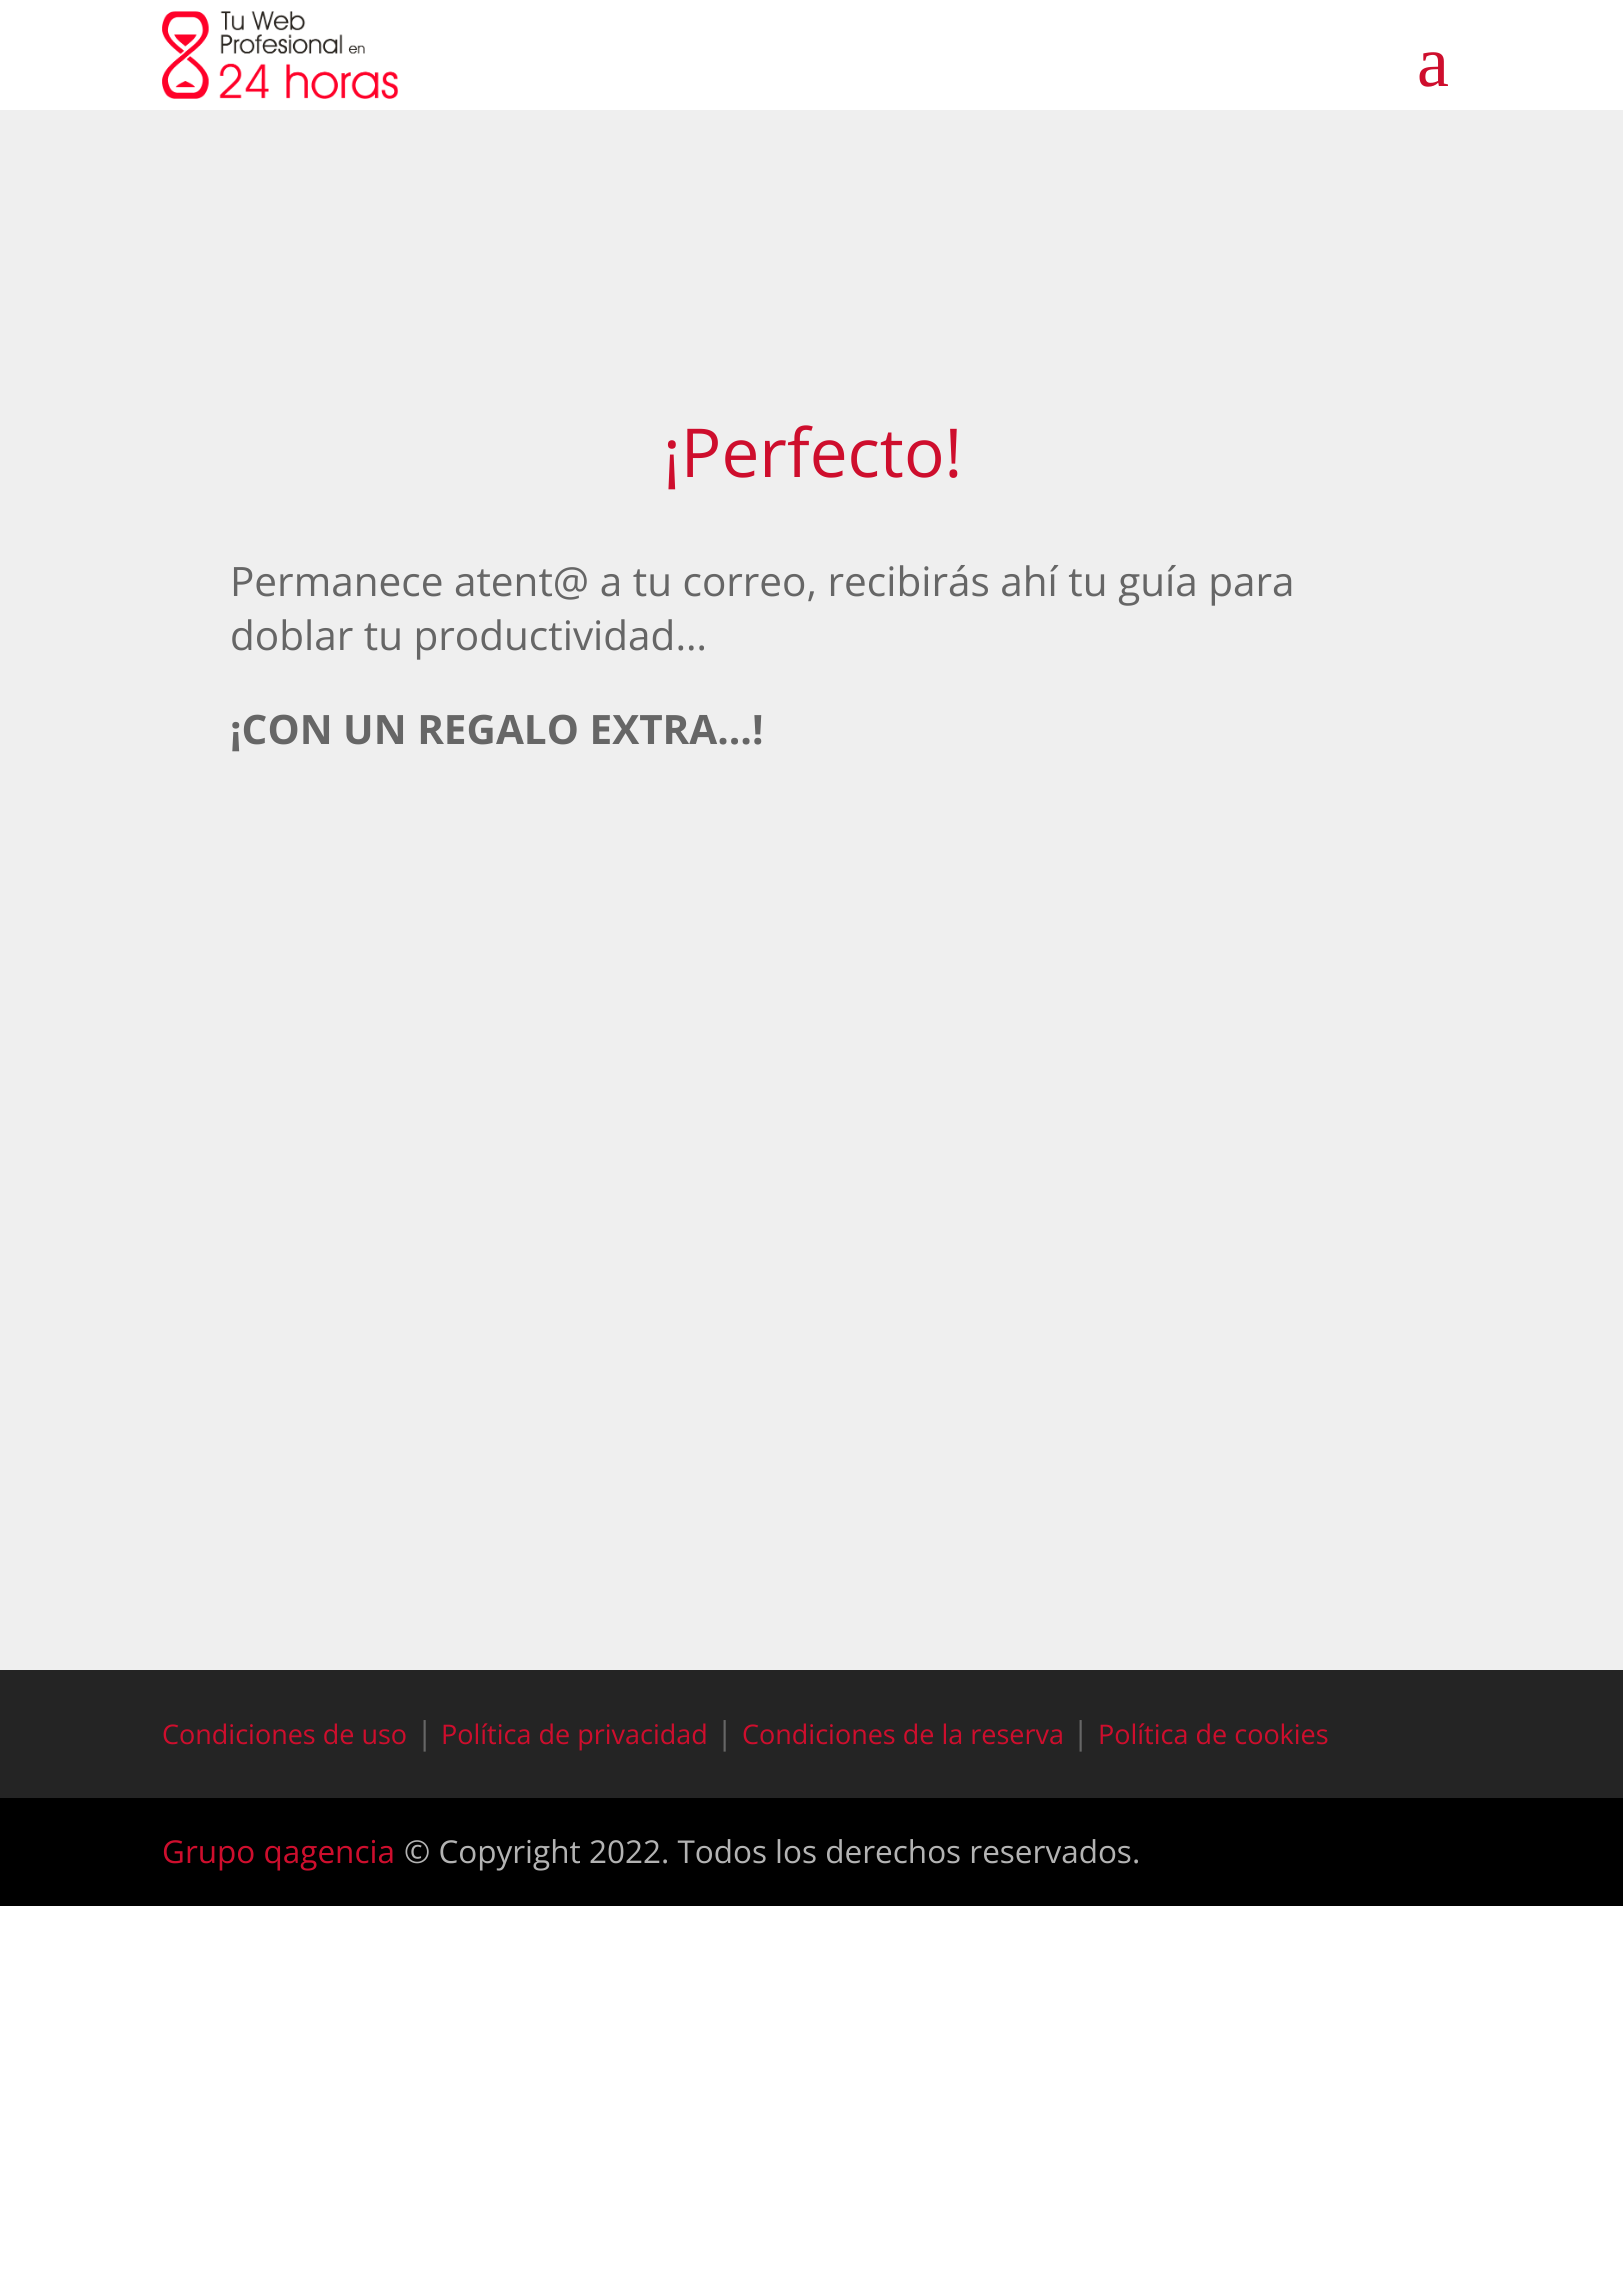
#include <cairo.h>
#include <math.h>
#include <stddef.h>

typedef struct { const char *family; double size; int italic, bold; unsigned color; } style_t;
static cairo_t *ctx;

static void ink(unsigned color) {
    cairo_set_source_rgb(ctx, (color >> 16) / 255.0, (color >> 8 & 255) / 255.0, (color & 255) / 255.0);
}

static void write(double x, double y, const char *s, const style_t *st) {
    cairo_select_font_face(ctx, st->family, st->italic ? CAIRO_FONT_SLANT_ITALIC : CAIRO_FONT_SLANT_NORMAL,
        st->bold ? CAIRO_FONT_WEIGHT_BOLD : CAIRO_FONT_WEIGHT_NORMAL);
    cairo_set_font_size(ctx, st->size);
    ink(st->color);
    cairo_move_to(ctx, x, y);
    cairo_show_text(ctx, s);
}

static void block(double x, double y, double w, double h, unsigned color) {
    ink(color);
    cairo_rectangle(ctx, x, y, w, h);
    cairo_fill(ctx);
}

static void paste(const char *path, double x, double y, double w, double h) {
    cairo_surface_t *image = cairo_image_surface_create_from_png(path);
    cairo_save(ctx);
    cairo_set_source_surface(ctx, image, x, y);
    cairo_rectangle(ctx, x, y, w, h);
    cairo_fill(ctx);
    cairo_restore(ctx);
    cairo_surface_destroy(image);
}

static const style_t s1 = {"Liberation Serif", 72, 0, 0, 0xce0e2d};
static const style_t s2 = {"Open Sans", 67.5, 0, 0, 0xce0e2d};
static const style_t s3 = {"Open Sans", 40.5, 0, 0, 0x666666};
static const style_t s4 = {"Open Sans", 40.5, 0, 1, 0x666666};
static const style_t s5 = {"Open Sans", 27, 0, 0, 0xce0e2d};
static const style_t s6 = {"Open Sans", 31.5, 0, 0, 0x666666};
static const style_t s7 = {"Open Sans", 31.5, 0, 0, 0xce0e2d};
static const style_t s8 = {"Open Sans", 31.5, 0, 0, 0xb3b3b3};

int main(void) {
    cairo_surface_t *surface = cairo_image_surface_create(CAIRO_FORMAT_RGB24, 1623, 2287);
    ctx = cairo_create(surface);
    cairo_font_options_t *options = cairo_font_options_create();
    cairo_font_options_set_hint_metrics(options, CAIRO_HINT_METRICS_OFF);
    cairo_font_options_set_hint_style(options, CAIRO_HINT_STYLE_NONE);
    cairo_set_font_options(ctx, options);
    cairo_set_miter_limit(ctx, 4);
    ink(0xffffff);
    cairo_paint(ctx);
    paste("pic1.png", 162, 11, 237, 88);
    write(1417, 86, "a", &s1);
    block(0, 110, 1623, 1560, 0xefefef);
    write(663, 477, "¡Perfecto!", &s2);
    write(230, 596, "Permanece atent@ a tu correo, recibirás ahí tu guía para", &s3);
    write(230, 650, "doblar tu productividad…", &s3);
    write(230, 744, "¡CON UN REGALO EXTRA…!", &s4);
    block(0, 1670, 1623, 128, 0x242424);
    write(162, 1744, "Condiciones de uso", &s5);
    write(416, 1744, "|", &s6);
    write(441, 1744, "Política de privacidad", &s5);
    write(716, 1744, "|", &s6);
    write(742, 1744, "Condiciones de la reserva", &s5);
    write(1072, 1744, "|", &s6);
    write(1098, 1744, "Política de cookies", &s5);
    block(0, 1798, 1623, 108, 0x000000);
    write(162, 1863, "Grupo qagencia", &s7);
    write(404, 1863, "© Copyright 2022. Todos los derechos reservados.", &s8);
    cairo_surface_write_to_png(surface, "screenshot.png");
    cairo_font_options_destroy(options);
    cairo_destroy(ctx);
    cairo_surface_destroy(surface);
    return 0;
}
